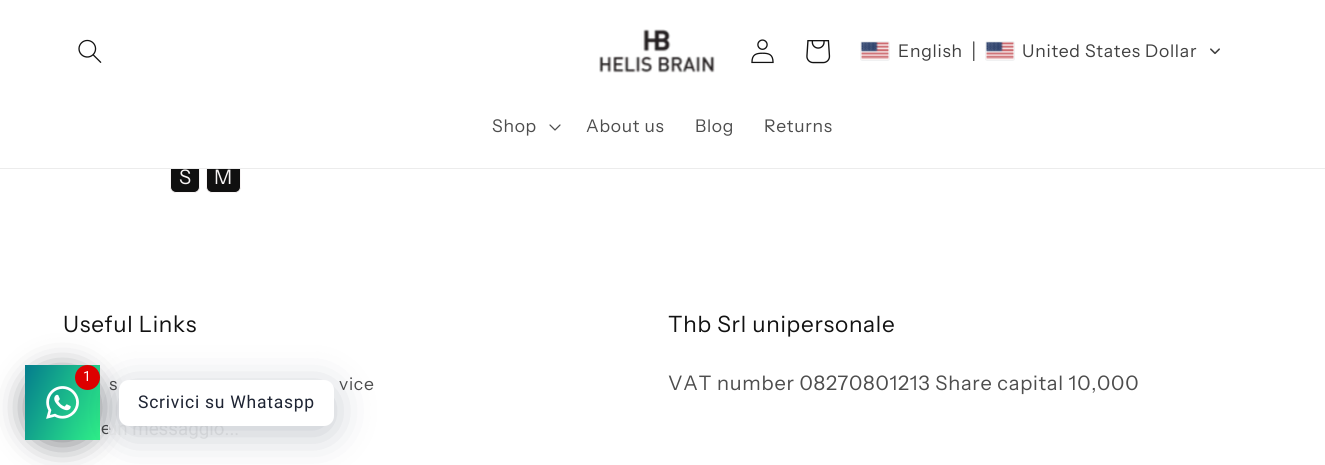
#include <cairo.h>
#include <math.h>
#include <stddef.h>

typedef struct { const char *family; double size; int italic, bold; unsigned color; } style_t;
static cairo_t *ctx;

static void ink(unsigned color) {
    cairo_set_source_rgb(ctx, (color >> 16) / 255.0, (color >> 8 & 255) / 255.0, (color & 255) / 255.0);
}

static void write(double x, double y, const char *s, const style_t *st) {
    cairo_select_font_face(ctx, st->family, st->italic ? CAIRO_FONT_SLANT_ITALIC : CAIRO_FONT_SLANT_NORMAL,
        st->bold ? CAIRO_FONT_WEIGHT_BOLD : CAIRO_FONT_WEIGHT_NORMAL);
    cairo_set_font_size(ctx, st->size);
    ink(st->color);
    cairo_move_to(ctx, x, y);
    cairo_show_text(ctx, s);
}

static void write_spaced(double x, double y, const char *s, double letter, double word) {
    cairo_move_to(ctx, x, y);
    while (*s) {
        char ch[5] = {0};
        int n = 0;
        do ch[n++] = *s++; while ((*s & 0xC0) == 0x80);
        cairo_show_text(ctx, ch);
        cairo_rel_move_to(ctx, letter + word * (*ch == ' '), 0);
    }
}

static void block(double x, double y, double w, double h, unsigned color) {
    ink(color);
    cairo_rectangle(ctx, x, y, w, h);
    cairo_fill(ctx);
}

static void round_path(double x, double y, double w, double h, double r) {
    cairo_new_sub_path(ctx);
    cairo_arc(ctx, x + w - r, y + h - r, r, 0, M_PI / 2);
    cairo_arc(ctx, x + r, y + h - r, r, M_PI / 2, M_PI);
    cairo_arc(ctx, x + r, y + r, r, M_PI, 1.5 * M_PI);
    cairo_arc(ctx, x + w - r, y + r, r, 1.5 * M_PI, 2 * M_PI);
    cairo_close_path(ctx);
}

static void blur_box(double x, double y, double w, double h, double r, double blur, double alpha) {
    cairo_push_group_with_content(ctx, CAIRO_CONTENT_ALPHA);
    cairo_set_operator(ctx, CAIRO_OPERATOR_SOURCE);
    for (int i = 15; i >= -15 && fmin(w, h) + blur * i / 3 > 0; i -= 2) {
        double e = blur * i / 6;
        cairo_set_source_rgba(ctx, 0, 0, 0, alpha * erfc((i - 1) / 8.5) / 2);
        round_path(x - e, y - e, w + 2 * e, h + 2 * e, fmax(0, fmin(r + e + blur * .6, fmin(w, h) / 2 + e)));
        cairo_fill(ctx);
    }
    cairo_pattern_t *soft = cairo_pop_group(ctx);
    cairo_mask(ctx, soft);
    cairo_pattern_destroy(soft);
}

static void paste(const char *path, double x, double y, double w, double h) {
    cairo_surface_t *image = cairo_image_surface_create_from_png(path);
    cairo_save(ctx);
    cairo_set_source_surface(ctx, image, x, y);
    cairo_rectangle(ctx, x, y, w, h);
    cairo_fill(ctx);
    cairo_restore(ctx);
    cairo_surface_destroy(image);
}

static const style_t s1 = {"Roboto", 18.75, 0, 0, 0xeeeeee};

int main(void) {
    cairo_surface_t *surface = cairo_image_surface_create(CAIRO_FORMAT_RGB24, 1325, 465);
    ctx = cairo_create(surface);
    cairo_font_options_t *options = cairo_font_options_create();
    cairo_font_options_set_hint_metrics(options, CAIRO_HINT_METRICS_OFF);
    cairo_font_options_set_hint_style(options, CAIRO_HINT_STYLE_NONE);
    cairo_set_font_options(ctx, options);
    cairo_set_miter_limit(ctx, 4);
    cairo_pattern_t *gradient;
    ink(0xffffff);
    cairo_paint(ctx);
    ink(0x101010);
    round_path(170.5, 160.5, 29, 32, 5.5);
    cairo_fill_preserve(ctx);
    ink(0xf8f5f5);
    cairo_set_line_width(ctx, 1);
    cairo_stroke(ctx);
    ink(0x101010);
    round_path(206.5, 160.5, 34, 32, 5.5);
    cairo_fill_preserve(ctx);
    ink(0xf8f5f5);
    cairo_stroke(ctx);
    block(170, 160, 71, 8, 0xffffff);
    block(0, 168, 1325, 1, 0xececec);
    paste("pic1.png", 78, 39, 24, 24);
    paste("pic2.png", 599, 29, 116, 44);
    paste("pic3.png", 751, 39, 23, 25);
    paste("pic4.png", 806, 40, 25, 24);
    round_path(860.5, 41.5, 29, 19, 2);
    ink(0xf0f1f2);
    cairo_stroke(ctx);
    paste("pic5.png", 861, 42, 28, 18);
    cairo_select_font_face(ctx, "Instrument Sans", CAIRO_FONT_SLANT_NORMAL, CAIRO_FONT_WEIGHT_NORMAL);
    cairo_set_font_size(ctx, 17.5);
    ink(0x404040);
    write_spaced(898, 57, "English", 0.75, 0);
    paste("pic6.png", 973, 41, 2, 20);
    round_path(985.5, 41.5, 29, 19, 2);
    ink(0xf0f1f2);
    cairo_stroke(ctx);
    paste("pic5.png", 986, 42, 28, 18);
    ink(0x404040);
    write_spaced(1022, 57, "United States Dollar", 0.75, 0);
    paste("pic7.png", 1210, 48, 10, 7);
    ink(0x4d4d4d);
    write_spaced(492, 132, "Shop", 0.75, 0);
    paste("pic8.png", 549, 124, 12, 7);
    write_spaced(586, 132, "About us", 0.75, 0);
    write_spaced(695, 132, "Blog", 0.75, 0);
    write_spaced(764, 132, "Returns", 0.75, 0);
    cairo_set_font_size(ctx, 20);
    ink(0xf8f5f5);
    write_spaced(179, 184, "S", 0.75, 0);
    write_spaced(214, 184, "M", 0.75, 0);
    cairo_set_font_size(ctx, 22.5);
    ink(0x121212);
    write_spaced(63, 332, "Useful Links", 0.75, 0);
    cairo_set_font_size(ctx, 17.5);
    ink(0x4d4d4d);
    write_spaced(109, 390, "s", 0.75, 0);
    write_spaced(339, 390, "vice", 0.75, 0);
    write_spaced(101, 434, "e", 0.75, 0);
    cairo_set_font_size(ctx, 22.5);
    ink(0x121212);
    write_spaced(668, 332, "Thb Srl unipersonale", 0.75, 0);
    cairo_set_font_size(ctx, 20);
    ink(0x4d4d4d);
    write_spaced(668, 390, "VAT number 08270801213 Share capital 10,000", 0.75, 0);
    ink(0x020610);
    blur_box(25, 370, 75, 75, 37.5, 15, 0.5);
    write(92, 435, "a un messaggio...", &s1);
    gradient = cairo_pattern_create_linear(17, 381, 108, 424);
    cairo_pattern_add_color_stop_rgba(gradient, 0, 0.016, 0.486, 0.553, 1);
    cairo_pattern_add_color_stop_rgba(gradient, 1, 0.184, 0.949, 0.537, 1);
    cairo_set_source(ctx, gradient);
    cairo_pattern_destroy(gradient);
    cairo_rectangle(ctx, 25, 365, 75, 75);
    cairo_fill(ctx);
    ink(0x00122e);
    blur_box(119, 388, 215, 46, 10, 20, 0.24);
    paste("pic9.png", 46, 386, 33, 33);
    ink(0xdd0000);
    cairo_arc(ctx, 87.5, 377.5, 12.5, 0, 2 * M_PI);
    cairo_fill(ctx);
    cairo_set_font_size(ctx, 14);
    ink(0xffffff);
    write_spaced(83, 381, "1", 0.75, 0);
    round_path(119, 380, 215, 46, 10);
    cairo_fill(ctx);
    cairo_set_font_size(ctx, 17.5);
    ink(0x1e2433);
    write_spaced(138, 408, "Scrivici su Whataspp", 0.75, 0);
    cairo_surface_write_to_png(surface, "screenshot.png");
    cairo_font_options_destroy(options);
    cairo_destroy(ctx);
    cairo_surface_destroy(surface);
    return 0;
}
